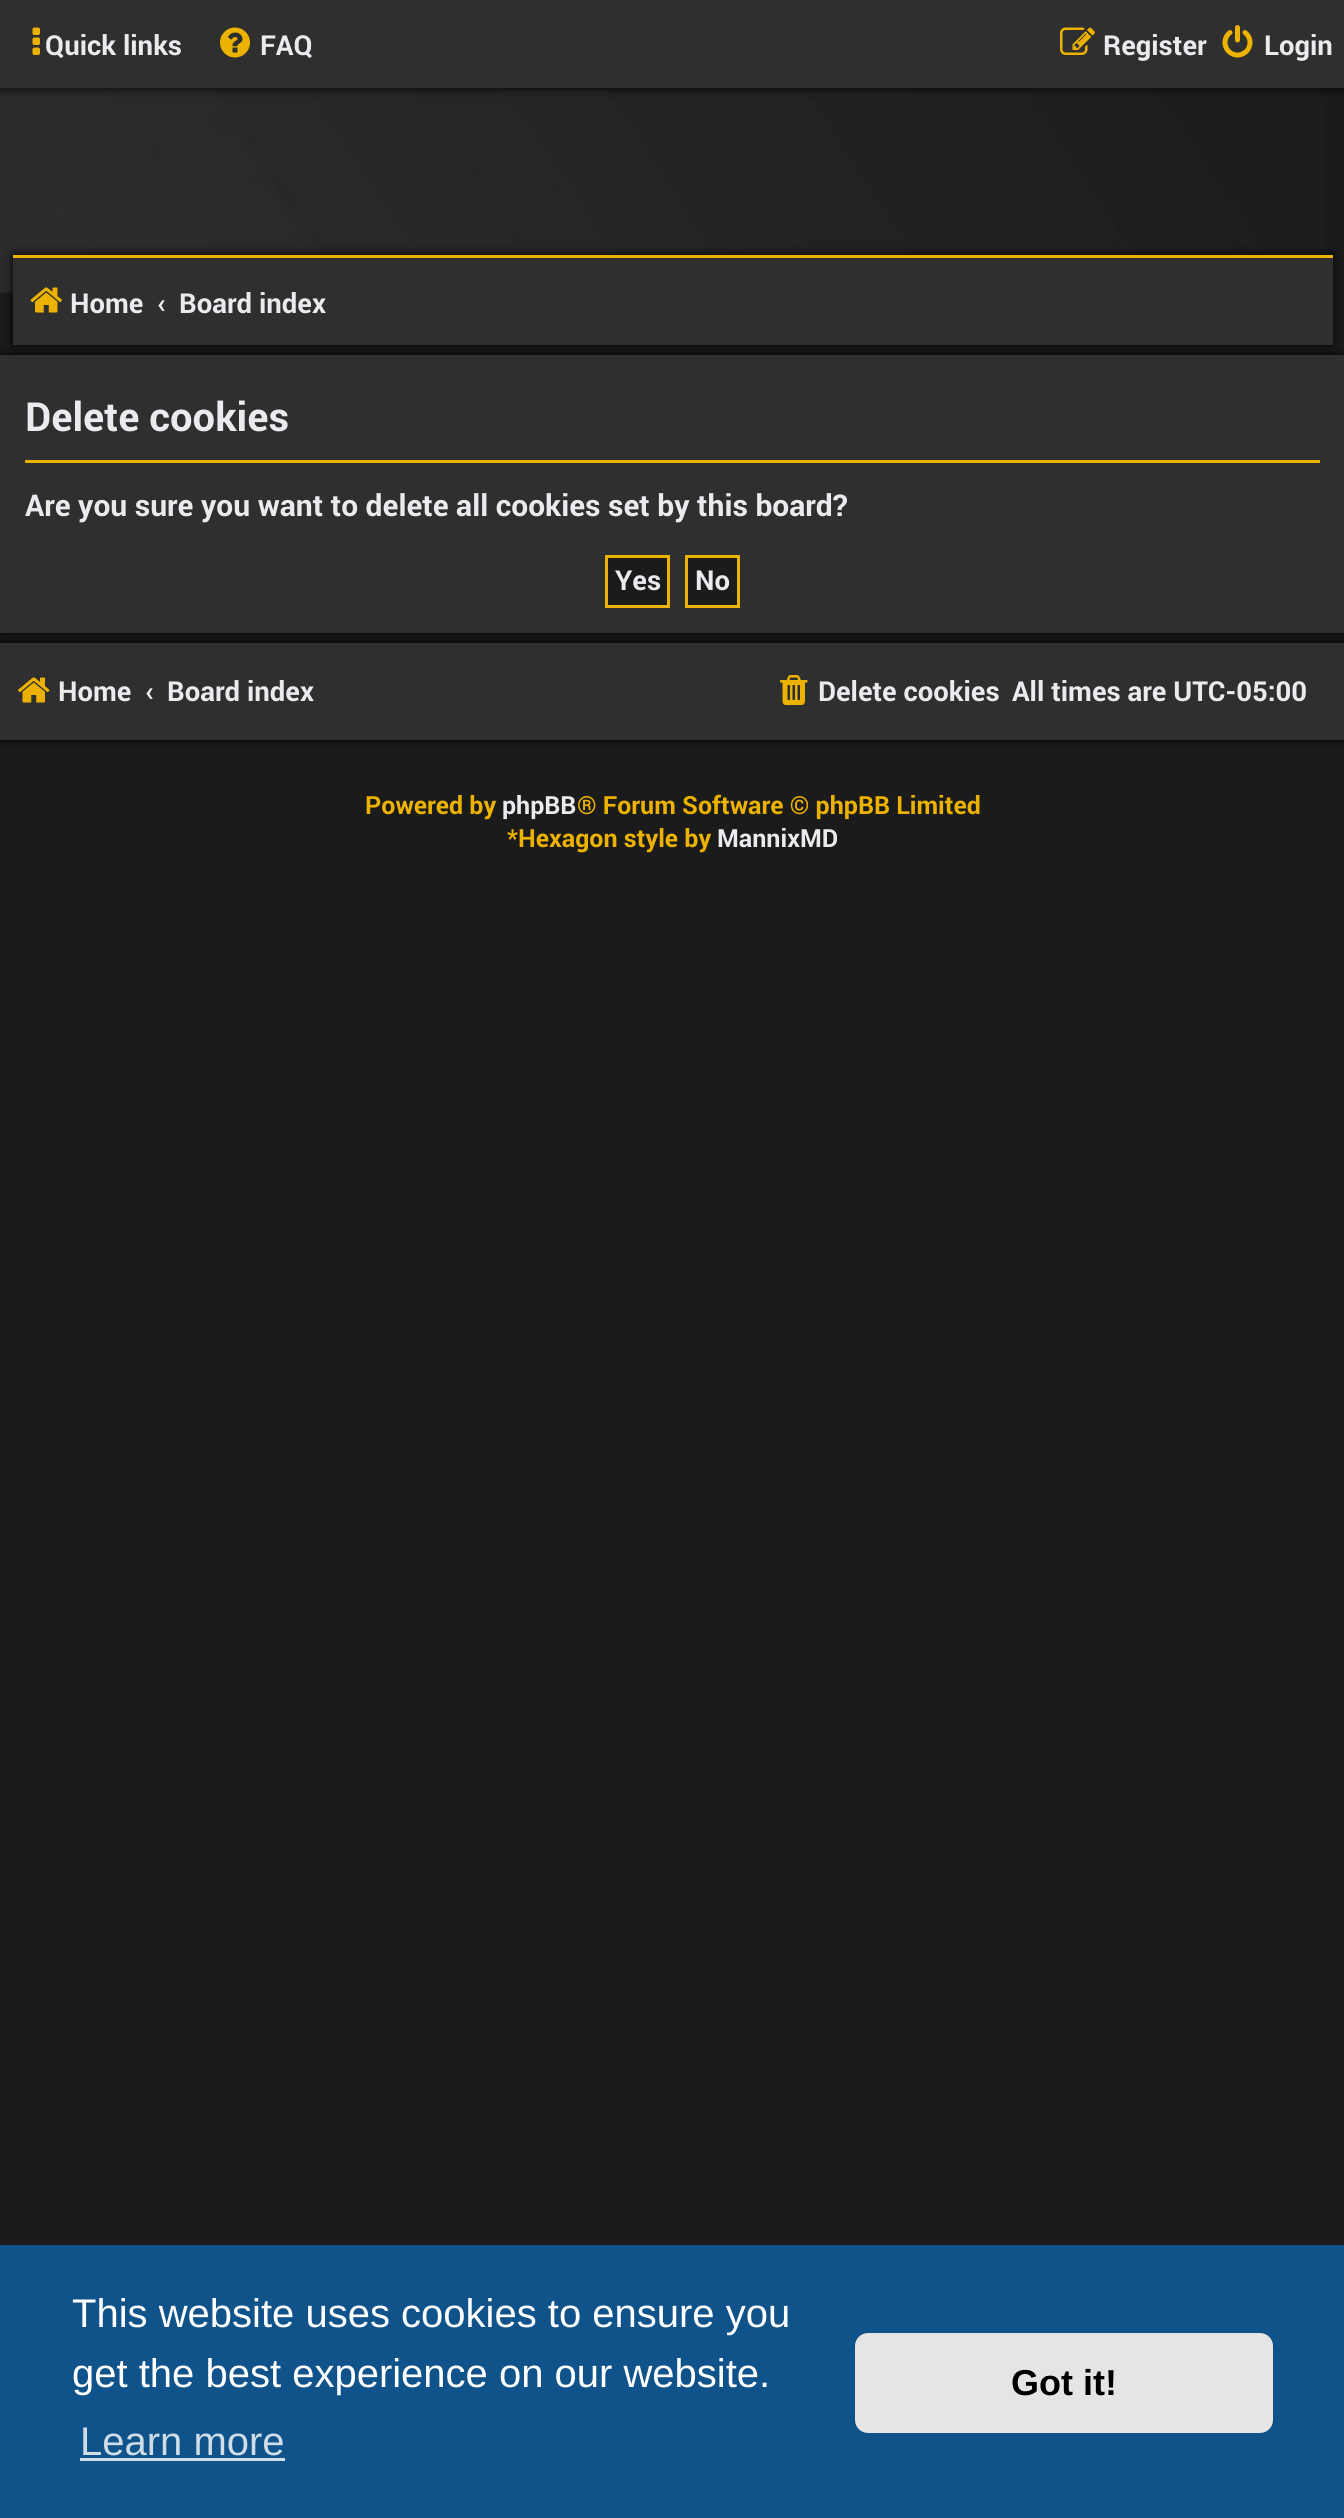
#include <cairo.h>
#include <math.h>
#include <stddef.h>

typedef struct { const char *family; double size; int italic, bold; unsigned color; } style_t;
static cairo_t *ctx;

static void ink(unsigned color) {
    cairo_set_source_rgb(ctx, (color >> 16) / 255.0, (color >> 8 & 255) / 255.0, (color & 255) / 255.0);
}

static void write(double x, double y, const char *s, const style_t *st) {
    cairo_select_font_face(ctx, st->family, st->italic ? CAIRO_FONT_SLANT_ITALIC : CAIRO_FONT_SLANT_NORMAL,
        st->bold ? CAIRO_FONT_WEIGHT_BOLD : CAIRO_FONT_WEIGHT_NORMAL);
    cairo_set_font_size(ctx, st->size);
    ink(st->color);
    cairo_move_to(ctx, x, y);
    cairo_show_text(ctx, s);
}

static void block(double x, double y, double w, double h, unsigned color) {
    ink(color);
    cairo_rectangle(ctx, x, y, w, h);
    cairo_fill(ctx);
}

static void round_path(double x, double y, double w, double h, double r) {
    cairo_new_sub_path(ctx);
    cairo_arc(ctx, x + w - r, y + h - r, r, 0, M_PI / 2);
    cairo_arc(ctx, x + r, y + h - r, r, M_PI / 2, M_PI);
    cairo_arc(ctx, x + r, y + r, r, M_PI, 1.5 * M_PI);
    cairo_arc(ctx, x + w - r, y + r, r, 1.5 * M_PI, 2 * M_PI);
    cairo_close_path(ctx);
}

static void blur_box(double x, double y, double w, double h, double r, double blur, double alpha) {
    cairo_push_group_with_content(ctx, CAIRO_CONTENT_ALPHA);
    cairo_set_operator(ctx, CAIRO_OPERATOR_SOURCE);
    for (int i = 15; i >= -15 && fmin(w, h) + blur * i / 3 > 0; i -= 2) {
        double e = blur * i / 6;
        cairo_set_source_rgba(ctx, 0, 0, 0, alpha * erfc((i - 1) / 8.5) / 2);
        round_path(x - e, y - e, w + 2 * e, h + 2 * e, fmax(0, fmin(r + e + blur * .6, fmin(w, h) / 2 + e)));
        cairo_fill(ctx);
    }
    cairo_pattern_t *soft = cairo_pop_group(ctx);
    cairo_mask(ctx, soft);
    cairo_pattern_destroy(soft);
}

static void paste(const char *path, double x, double y, double w, double h) {
    cairo_surface_t *image = cairo_image_surface_create_from_png(path);
    cairo_save(ctx);
    cairo_set_source_surface(ctx, image, x, y);
    cairo_rectangle(ctx, x, y, w, h);
    cairo_fill(ctx);
    cairo_restore(ctx);
    cairo_surface_destroy(image);
}

static const style_t s1 = {"Roboto", 27.5, 0, 1, 0xe9ebee};
static const style_t s2 = {"Roboto", 40, 0, 1, 0xe9ebee};
static const style_t s3 = {"Roboto", 30, 0, 1, 0xe9ebee};
static const style_t s4 = {"Roboto", 25, 0, 1, 0xecb200};
static const style_t s5 = {"Roboto", 25, 0, 1, 0xe9ebee};
static const style_t s6 = {"Liberation Sans", 40, 0, 0, 0xffffff};
static const style_t s7 = {"Liberation Sans", 40, 0, 0, 0xcfdde8};
static const style_t s8 = {"Liberation Sans", 36, 0, 1, 0x000000};

int main(void) {
    cairo_surface_t *surface = cairo_image_surface_create(CAIRO_FORMAT_RGB24, 1344, 2518);
    ctx = cairo_create(surface);
    cairo_font_options_t *options = cairo_font_options_create();
    cairo_font_options_set_hint_metrics(options, CAIRO_HINT_METRICS_OFF);
    cairo_font_options_set_hint_style(options, CAIRO_HINT_STYLE_NONE);
    cairo_set_font_options(ctx, options);
    cairo_set_miter_limit(ctx, 4);
    ink(0x1b1b1b);
    cairo_paint(ctx);
    paste("pic5.png", 0, 88, 1323, 205);
    ink(0x000000);
    blur_box(0, 0, 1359, 88, 0, 5, 1);
    block(0, 0, 1344, 88, 0x2f2f2f);
    paste("pic1.png", 32, 27, 8, 28);
    write(45, 55, "Quick links", &s1);
    paste("pic2.png", 220, 27, 30, 31);
    write(260, 55, "FAQ", &s1);
    paste("pic3.png", 1060, 27, 35, 28);
    write(1103, 55, "Register", &s1);
    paste("pic4.png", 1222, 25, 31, 33);
    write(1264, 55, "Login", &s1);
    ink(0x000000);
    blur_box(13, 255, 1320, 90, 0, 5, 1);
    block(13, 258, 1320, 87, 0x2f2f2f);
    block(13, 255, 1320, 3, 0xecb200);
    paste("pic6.png", 30, 287, 32, 26);
    write(70, 313, "Home", &s1);
    write(157, 313, "‹", &s1);
    write(179, 313, "Board index", &s1);
    ink(0x000000);
    blur_box(0, 355, 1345, 278, 0, 5, 1);
    block(0, 355, 1344, 278, 0x2f2f2f);
    block(25, 460, 1295, 3, 0xecb200);
    write(25, 431, "Delete cookies", &s2);
    write(25, 516, "Are you sure you want to delete all cookies set by this board?", &s3);
    ink(0x1b1b1b);
    cairo_rectangle(ctx, 606.5, 556.5, 62, 50);
    cairo_fill_preserve(ctx);
    ink(0xecb200);
    cairo_set_line_width(ctx, 3);
    cairo_stroke(ctx);
    write(615, 590, "Yes", &s1);
    ink(0x1b1b1b);
    cairo_rectangle(ctx, 686.5, 556.5, 52, 50);
    cairo_fill_preserve(ctx);
    ink(0xecb200);
    cairo_stroke(ctx);
    write(695, 590, "No", &s1);
    ink(0x000000);
    blur_box(0, 643, 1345, 97, 0, 5, 1);
    block(0, 643, 1344, 97, 0x2f2f2f);
    paste("pic7.png", 18, 677, 32, 26);
    write(58, 701, "Home", &s1);
    write(145, 701, "‹", &s1);
    write(167, 701, "Board index", &s1);
    paste("pic8.png", 780, 675, 28, 30);
    write(818, 701, "Delete cookies", &s1);
    write(1012, 701, "All times are UTC-05:00", &s1);
    write(365, 814, "Powered by", &s4);
    write(502, 814, "phpBB", &s5);
    write(577, 814, "® Forum Software © phpBB Limited", &s4);
    write(507, 847, "*Hexagon style by", &s4);
    write(717, 847, "MannixMD", &s5);
    block(0, 2245, 1344, 273, 0x0f538a);
    write(72, 2327, "This website uses cookies to ensure you", &s6);
    write(72, 2387, "get the best experience on our website.", &s6);
    write(80, 2455, "Learn more", &s7);
    block(80, 2458, 205, 3, 0xcfdde8);
    ink(0xe5e5e5);
    round_path(855, 2333, 418, 100, 13);
    cairo_fill(ctx);
    write(1011, 2395, "Got it!", &s8);
    cairo_surface_write_to_png(surface, "screenshot.png");
    cairo_font_options_destroy(options);
    cairo_destroy(ctx);
    cairo_surface_destroy(surface);
    return 0;
}
